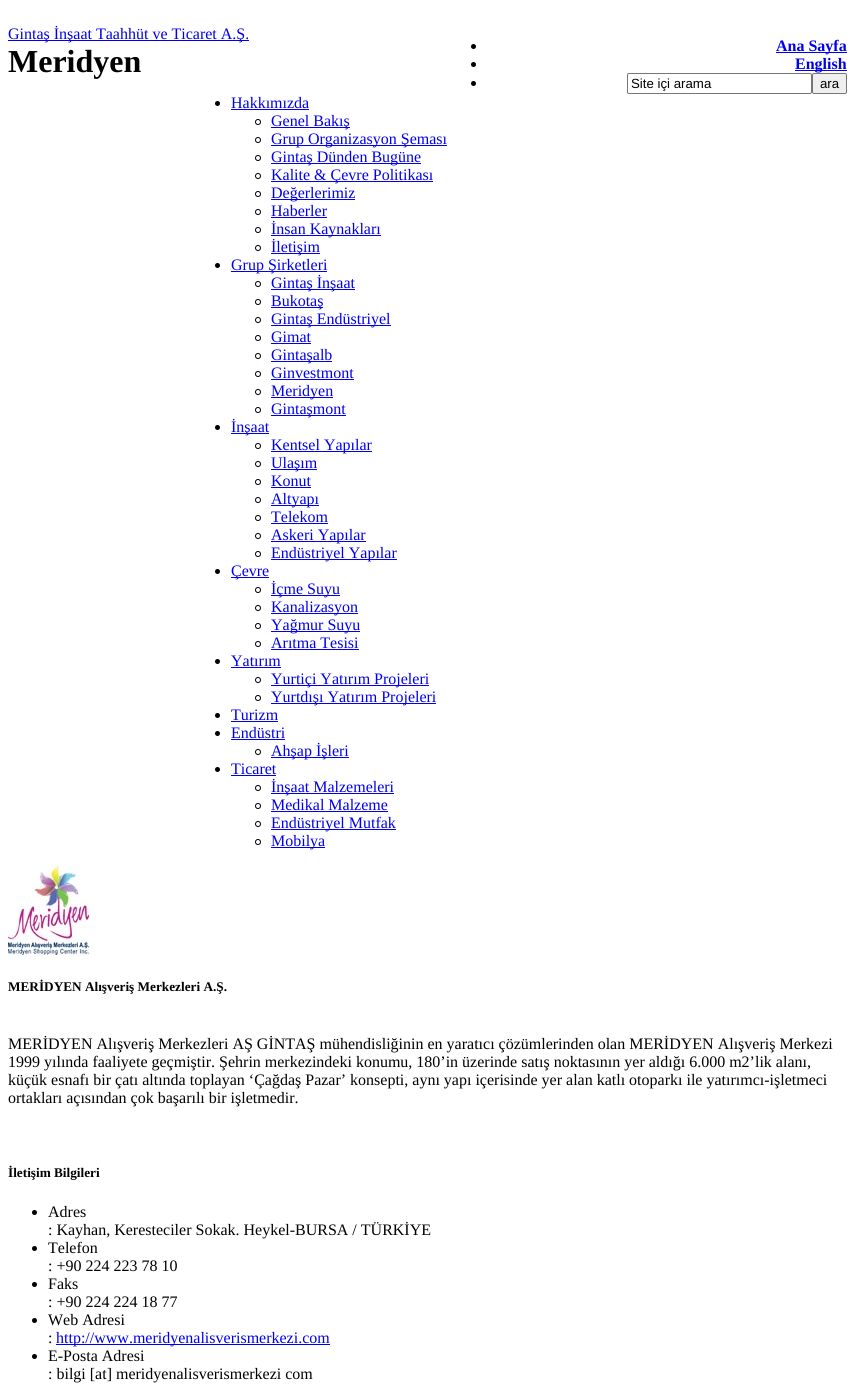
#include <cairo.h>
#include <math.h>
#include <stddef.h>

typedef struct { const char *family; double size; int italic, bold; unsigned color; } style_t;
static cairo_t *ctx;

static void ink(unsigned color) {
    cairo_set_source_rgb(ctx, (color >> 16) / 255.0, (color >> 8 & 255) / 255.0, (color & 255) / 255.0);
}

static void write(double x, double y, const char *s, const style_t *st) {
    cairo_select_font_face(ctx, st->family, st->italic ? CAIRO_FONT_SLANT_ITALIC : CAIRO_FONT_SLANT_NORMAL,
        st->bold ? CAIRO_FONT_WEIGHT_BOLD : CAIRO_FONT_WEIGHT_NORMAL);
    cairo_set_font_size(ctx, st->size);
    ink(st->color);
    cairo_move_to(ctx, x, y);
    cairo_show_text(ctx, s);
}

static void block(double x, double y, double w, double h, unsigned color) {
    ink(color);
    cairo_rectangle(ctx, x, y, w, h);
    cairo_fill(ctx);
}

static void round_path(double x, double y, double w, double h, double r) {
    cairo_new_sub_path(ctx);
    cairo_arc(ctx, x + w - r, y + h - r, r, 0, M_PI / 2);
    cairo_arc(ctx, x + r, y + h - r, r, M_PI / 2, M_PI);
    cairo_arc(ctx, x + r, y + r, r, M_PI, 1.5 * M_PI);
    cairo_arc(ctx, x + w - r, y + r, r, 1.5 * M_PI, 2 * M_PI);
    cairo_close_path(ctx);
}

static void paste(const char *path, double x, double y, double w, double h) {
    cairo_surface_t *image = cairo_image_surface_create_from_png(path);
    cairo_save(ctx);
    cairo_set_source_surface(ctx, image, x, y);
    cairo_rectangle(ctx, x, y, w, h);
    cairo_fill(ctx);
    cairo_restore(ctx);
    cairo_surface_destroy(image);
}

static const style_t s1 = {"Liberation Serif", 16, 0, 0, 0x0000ee};
static const style_t s2 = {"Liberation Serif", 16, 0, 1, 0x0000ee};
static const style_t s3 = {"Liberation Sans", 13.25, 0, 0, 0x000000};
static const style_t s4 = {"Liberation Serif", 32, 0, 1, 0x000000};
static const style_t s5 = {"Liberation Serif", 13.25, 0, 1, 0x000000};
static const style_t s6 = {"Liberation Serif", 16, 0, 0, 0x000000};

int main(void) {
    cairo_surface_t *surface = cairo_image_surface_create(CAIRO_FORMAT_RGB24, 855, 1385);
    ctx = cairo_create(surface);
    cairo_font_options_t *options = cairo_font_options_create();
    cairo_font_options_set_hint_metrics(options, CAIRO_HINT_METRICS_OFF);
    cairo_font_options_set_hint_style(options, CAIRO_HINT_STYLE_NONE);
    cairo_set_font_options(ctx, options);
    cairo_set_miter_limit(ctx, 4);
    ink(0xffffff);
    cairo_paint(ctx);
    block(8, 40, 241, 1, 0x0000ee);
    write(8, 39, "Gintaş İnşaat Taahhüt ve Ticaret A.Ş.", &s1);
    ink(0x000000);
    cairo_new_path(ctx);
    cairo_arc(ctx, 473.5, 46.5, 2.5, 0, 2 * M_PI);
    cairo_fill(ctx);
    block(776, 52, 71, 1, 0x0000ee);
    write(776, 51, "Ana Sayfa", &s2);
    ink(0x000000);
    cairo_new_path(ctx);
    cairo_arc(ctx, 473.5, 64.5, 2.5, 0, 2 * M_PI);
    cairo_fill(ctx);
    block(795, 70, 52, 1, 0x0000ee);
    write(795, 69, "English", &s2);
    ink(0x000000);
    cairo_new_path(ctx);
    cairo_arc(ctx, 473.5, 83.5, 2.5, 0, 2 * M_PI);
    cairo_fill(ctx);
    round_path(627.5, 73.5, 184, 20, 1.5);
    ink(0x767676);
    cairo_set_line_width(ctx, 1);
    cairo_stroke(ctx);
    write(631, 88, "Site içi arama", &s3);
    ink(0xefefef);
    round_path(812.5, 73.5, 34, 20, 1.5);
    cairo_fill_preserve(ctx);
    ink(0x767676);
    cairo_stroke(ctx);
    write(820, 88, "ara", &s3);
    cairo_new_path(ctx);
    cairo_arc(ctx, 217.5, 103.5, 2.5, 0, 2 * M_PI);
    cairo_fill(ctx);
    write(231, 108, "Hakkımızda", &s1);
    block(231, 109, 78, 1, 0x0000ee);
    cairo_new_path(ctx);
    cairo_arc(ctx, 258, 122, 2.5, 0, 2 * M_PI);
    ink(0x000000);
    cairo_stroke(ctx);
    block(271, 127, 79, 1, 0x0000ee);
    write(271, 126, "Genel Bakış", &s1);
    cairo_new_path(ctx);
    cairo_arc(ctx, 258, 140, 2.5, 0, 2 * M_PI);
    ink(0x000000);
    cairo_stroke(ctx);
    block(271, 145, 176, 1, 0x0000ee);
    write(271, 144, "Grup Organizasyon Şeması", &s1);
    cairo_new_path(ctx);
    cairo_arc(ctx, 258, 158, 2.5, 0, 2 * M_PI);
    ink(0x000000);
    cairo_stroke(ctx);
    block(271, 163, 150, 1, 0x0000ee);
    write(271, 162, "Gintaş Dünden Bugüne", &s1);
    cairo_new_path(ctx);
    cairo_arc(ctx, 258, 176, 2.5, 0, 2 * M_PI);
    ink(0x000000);
    cairo_stroke(ctx);
    block(271, 181, 162, 1, 0x0000ee);
    write(271, 180, "Kalite & Çevre Politikası", &s1);
    cairo_new_path(ctx);
    cairo_arc(ctx, 258, 194, 2.5, 0, 2 * M_PI);
    ink(0x000000);
    cairo_stroke(ctx);
    block(271, 199, 84, 1, 0x0000ee);
    write(271, 198, "Değerlerimiz", &s1);
    cairo_new_path(ctx);
    cairo_arc(ctx, 258, 212, 2.5, 0, 2 * M_PI);
    ink(0x000000);
    cairo_stroke(ctx);
    write(271, 216, "Haberler", &s1);
    block(271, 217, 56, 1, 0x0000ee);
    cairo_new_path(ctx);
    cairo_arc(ctx, 258, 230, 2.5, 0, 2 * M_PI);
    ink(0x000000);
    cairo_stroke(ctx);
    block(271, 235, 110, 1, 0x0000ee);
    write(271, 234, "İnsan Kaynakları", &s1);
    cairo_new_path(ctx);
    cairo_arc(ctx, 258, 248, 2.5, 0, 2 * M_PI);
    ink(0x000000);
    cairo_stroke(ctx);
    block(271, 253, 49, 1, 0x0000ee);
    write(271, 252, "İletişim", &s1);
    ink(0x000000);
    cairo_new_path(ctx);
    cairo_arc(ctx, 217.5, 265.5, 2.5, 0, 2 * M_PI);
    cairo_fill(ctx);
    block(231, 271, 96, 1, 0x0000ee);
    write(231, 270, "Grup Şirketleri", &s1);
    cairo_new_path(ctx);
    cairo_arc(ctx, 258, 284, 2.5, 0, 2 * M_PI);
    ink(0x000000);
    cairo_stroke(ctx);
    block(271, 289, 84, 1, 0x0000ee);
    write(271, 288, "Gintaş İnşaat", &s1);
    cairo_new_path(ctx);
    cairo_arc(ctx, 258, 302, 2.5, 0, 2 * M_PI);
    ink(0x000000);
    cairo_stroke(ctx);
    block(271, 307, 52, 1, 0x0000ee);
    write(271, 306, "Bukotaş", &s1);
    cairo_new_path(ctx);
    cairo_arc(ctx, 258, 320, 2.5, 0, 2 * M_PI);
    ink(0x000000);
    cairo_stroke(ctx);
    block(271, 325, 120, 1, 0x0000ee);
    write(271, 324, "Gintaş Endüstriyel", &s1);
    cairo_new_path(ctx);
    cairo_arc(ctx, 258, 338, 2.5, 0, 2 * M_PI);
    ink(0x000000);
    cairo_stroke(ctx);
    write(271, 342, "Gimat", &s1);
    block(271, 343, 40, 1, 0x0000ee);
    cairo_new_path(ctx);
    cairo_arc(ctx, 258, 356, 2.5, 0, 2 * M_PI);
    ink(0x000000);
    cairo_stroke(ctx);
    block(271, 361, 61, 1, 0x0000ee);
    write(271, 360, "Gintaşalb", &s1);
    cairo_new_path(ctx);
    cairo_arc(ctx, 258, 374, 2.5, 0, 2 * M_PI);
    ink(0x000000);
    cairo_stroke(ctx);
    write(271, 378, "Ginvestmont", &s1);
    block(271, 379, 83, 1, 0x0000ee);
    cairo_new_path(ctx);
    cairo_arc(ctx, 258, 392, 2.5, 0, 2 * M_PI);
    ink(0x000000);
    cairo_stroke(ctx);
    block(271, 397, 62, 1, 0x0000ee);
    write(271, 396, "Meridyen", &s1);
    cairo_new_path(ctx);
    cairo_arc(ctx, 258, 410, 2.5, 0, 2 * M_PI);
    ink(0x000000);
    cairo_stroke(ctx);
    block(271, 415, 75, 1, 0x0000ee);
    write(271, 414, "Gintaşmont", &s1);
    ink(0x000000);
    cairo_new_path(ctx);
    cairo_arc(ctx, 217.5, 427.5, 2.5, 0, 2 * M_PI);
    cairo_fill(ctx);
    block(231, 433, 38, 1, 0x0000ee);
    write(231, 432, "İnşaat", &s1);
    cairo_new_path(ctx);
    cairo_arc(ctx, 258, 446, 2.5, 0, 2 * M_PI);
    ink(0x000000);
    cairo_stroke(ctx);
    block(271, 451, 101, 1, 0x0000ee);
    write(271, 450, "Kentsel Yapılar", &s1);
    cairo_new_path(ctx);
    cairo_arc(ctx, 258, 464, 2.5, 0, 2 * M_PI);
    ink(0x000000);
    cairo_stroke(ctx);
    block(271, 469, 46, 1, 0x0000ee);
    write(271, 468, "Ulaşım", &s1);
    cairo_new_path(ctx);
    cairo_arc(ctx, 258, 482, 2.5, 0, 2 * M_PI);
    ink(0x000000);
    cairo_stroke(ctx);
    write(271, 486, "Konut", &s1);
    block(271, 487, 40, 1, 0x0000ee);
    cairo_new_path(ctx);
    cairo_arc(ctx, 258, 500, 2.5, 0, 2 * M_PI);
    ink(0x000000);
    cairo_stroke(ctx);
    block(271, 505, 48, 1, 0x0000ee);
    write(271, 504, "Altyapı", &s1);
    cairo_new_path(ctx);
    cairo_arc(ctx, 258, 518, 2.5, 0, 2 * M_PI);
    ink(0x000000);
    cairo_stroke(ctx);
    write(271, 522, "Telekom", &s1);
    block(271, 523, 57, 1, 0x0000ee);
    cairo_new_path(ctx);
    cairo_arc(ctx, 258, 536, 2.5, 0, 2 * M_PI);
    ink(0x000000);
    cairo_stroke(ctx);
    block(271, 541, 95, 1, 0x0000ee);
    write(271, 540, "Askeri Yapılar", &s1);
    cairo_new_path(ctx);
    cairo_arc(ctx, 258, 554, 2.5, 0, 2 * M_PI);
    ink(0x000000);
    cairo_stroke(ctx);
    block(271, 559, 126, 1, 0x0000ee);
    write(271, 558, "Endüstriyel Yapılar", &s1);
    ink(0x000000);
    cairo_new_path(ctx);
    cairo_arc(ctx, 217.5, 571.5, 2.5, 0, 2 * M_PI);
    cairo_fill(ctx);
    block(231, 577, 38, 1, 0x0000ee);
    write(231, 576, "Çevre", &s1);
    cairo_new_path(ctx);
    cairo_arc(ctx, 258, 590, 2.5, 0, 2 * M_PI);
    ink(0x000000);
    cairo_stroke(ctx);
    block(271, 595, 69, 1, 0x0000ee);
    write(271, 594, "İçme Suyu", &s1);
    cairo_new_path(ctx);
    cairo_arc(ctx, 258, 608, 2.5, 0, 2 * M_PI);
    ink(0x000000);
    cairo_stroke(ctx);
    block(271, 613, 87, 1, 0x0000ee);
    write(271, 612, "Kanalizasyon", &s1);
    cairo_new_path(ctx);
    cairo_arc(ctx, 258, 626, 2.5, 0, 2 * M_PI);
    ink(0x000000);
    cairo_stroke(ctx);
    block(271, 631, 89, 1, 0x0000ee);
    write(271, 630, "Yağmur Suyu", &s1);
    cairo_new_path(ctx);
    cairo_arc(ctx, 258, 644, 2.5, 0, 2 * M_PI);
    ink(0x000000);
    cairo_stroke(ctx);
    write(271, 648, "Arıtma Tesisi", &s1);
    block(271, 649, 88, 1, 0x0000ee);
    ink(0x000000);
    cairo_new_path(ctx);
    cairo_arc(ctx, 217.5, 661.5, 2.5, 0, 2 * M_PI);
    cairo_fill(ctx);
    write(231, 666, "Yatırım", &s1);
    block(231, 667, 50, 1, 0x0000ee);
    cairo_new_path(ctx);
    cairo_arc(ctx, 258, 680, 2.5, 0, 2 * M_PI);
    ink(0x000000);
    cairo_stroke(ctx);
    block(271, 685, 158, 1, 0x0000ee);
    write(271, 684, "Yurtiçi Yatırım Projeleri", &s1);
    cairo_new_path(ctx);
    cairo_arc(ctx, 258, 698, 2.5, 0, 2 * M_PI);
    ink(0x000000);
    cairo_stroke(ctx);
    block(271, 703, 165, 1, 0x0000ee);
    write(271, 702, "Yurtdışı Yatırım Projeleri", &s1);
    ink(0x000000);
    cairo_new_path(ctx);
    cairo_arc(ctx, 217.5, 715.5, 2.5, 0, 2 * M_PI);
    cairo_fill(ctx);
    write(231, 720, "Turizm", &s1);
    block(231, 721, 47, 1, 0x0000ee);
    ink(0x000000);
    cairo_new_path(ctx);
    cairo_arc(ctx, 217.5, 733.5, 2.5, 0, 2 * M_PI);
    cairo_fill(ctx);
    write(231, 738, "Endüstri", &s1);
    block(231, 739, 54, 1, 0x0000ee);
    cairo_new_path(ctx);
    cairo_arc(ctx, 258, 752, 2.5, 0, 2 * M_PI);
    ink(0x000000);
    cairo_stroke(ctx);
    block(271, 757, 78, 1, 0x0000ee);
    write(271, 756, "Ahşap İşleri", &s1);
    ink(0x000000);
    cairo_new_path(ctx);
    cairo_arc(ctx, 217.5, 769.5, 2.5, 0, 2 * M_PI);
    cairo_fill(ctx);
    write(231, 774, "Ticaret", &s1);
    block(231, 775, 45, 1, 0x0000ee);
    cairo_new_path(ctx);
    cairo_arc(ctx, 258, 788, 2.5, 0, 2 * M_PI);
    ink(0x000000);
    cairo_stroke(ctx);
    block(271, 793, 123, 1, 0x0000ee);
    write(271, 792, "İnşaat Malzemeleri", &s1);
    cairo_new_path(ctx);
    cairo_arc(ctx, 258, 806, 2.5, 0, 2 * M_PI);
    ink(0x000000);
    cairo_stroke(ctx);
    write(271, 810, "Medikal Malzeme", &s1);
    block(271, 811, 117, 1, 0x0000ee);
    cairo_new_path(ctx);
    cairo_arc(ctx, 258, 824, 2.5, 0, 2 * M_PI);
    ink(0x000000);
    cairo_stroke(ctx);
    block(271, 829, 125, 1, 0x0000ee);
    write(271, 828, "Endüstriyel Mutfak", &s1);
    cairo_new_path(ctx);
    cairo_arc(ctx, 258, 842, 2.5, 0, 2 * M_PI);
    ink(0x000000);
    cairo_stroke(ctx);
    block(271, 847, 54, 1, 0x0000ee);
    write(271, 846, "Mobilya", &s1);
    write(8, 72, "Meridyen", &s4);
    paste("pic1.png", 8, 866, 88, 90);
    write(8, 991, "MERİDYEN Alışveriş Merkezleri A.Ş.", &s5);
    write(8, 1049, "MERİDYEN Alışveriş Merkezleri AŞ GİNTAŞ mühendisliğinin en yaratıcı çözümlerinden olan MERİDYEN Alışveriş Merkezi", &s6);
    write(8, 1067, "1999 yılında faaliyete geçmiştir. Şehrin merkezindeki konumu, 180’in üzerinde satış noktasının yer aldığı 6.000 m2’lik alanı,", &s6);
    write(8, 1085, "küçük esnafı bir çatı altında toplayan ‘Çağdaş Pazar’ konsepti, aynı yapı içerisinde yer alan katlı otoparkı ile yatırımcı-işletmeci", &s6);
    write(8, 1103, "ortakları açısından çok başarılı bir işletmedir.", &s6);
    write(8, 1177, "İletişim Bilgileri", &s5);
    cairo_new_path(ctx);
    cairo_arc(ctx, 34.5, 1212.5, 2.5, 0, 2 * M_PI);
    cairo_fill(ctx);
    write(48, 1217, "Adres", &s6);
    write(48, 1235, ": Kayhan, Keresteciler Sokak. Heykel-BURSA / TÜRKİYE", &s6);
    cairo_new_path(ctx);
    cairo_arc(ctx, 34.5, 1248.5, 2.5, 0, 2 * M_PI);
    cairo_fill(ctx);
    write(48, 1253, "Telefon", &s6);
    write(48, 1271, ": +90 224 223 78 10", &s6);
    cairo_new_path(ctx);
    cairo_arc(ctx, 34.5, 1284.5, 2.5, 0, 2 * M_PI);
    cairo_fill(ctx);
    write(48, 1289, "Faks", &s6);
    write(48, 1307, ": +90 224 224 18 77", &s6);
    cairo_new_path(ctx);
    cairo_arc(ctx, 34.5, 1320.5, 2.5, 0, 2 * M_PI);
    cairo_fill(ctx);
    write(48, 1325, "Web Adresi", &s6);
    write(48, 1343, ":", &s6);
    block(56, 1344, 274, 1, 0x0000ee);
    write(56, 1343, "http://www.meridyenalisverismerkezi.com", &s1);
    ink(0x000000);
    cairo_new_path(ctx);
    cairo_arc(ctx, 34.5, 1356.5, 2.5, 0, 2 * M_PI);
    cairo_fill(ctx);
    write(48, 1361, "E-Posta Adresi", &s6);
    write(48, 1379, ": bilgi [at] meridyenalisverismerkezi com", &s6);
    cairo_surface_write_to_png(surface, "screenshot.png");
    cairo_font_options_destroy(options);
    cairo_destroy(ctx);
    cairo_surface_destroy(surface);
    return 0;
}
